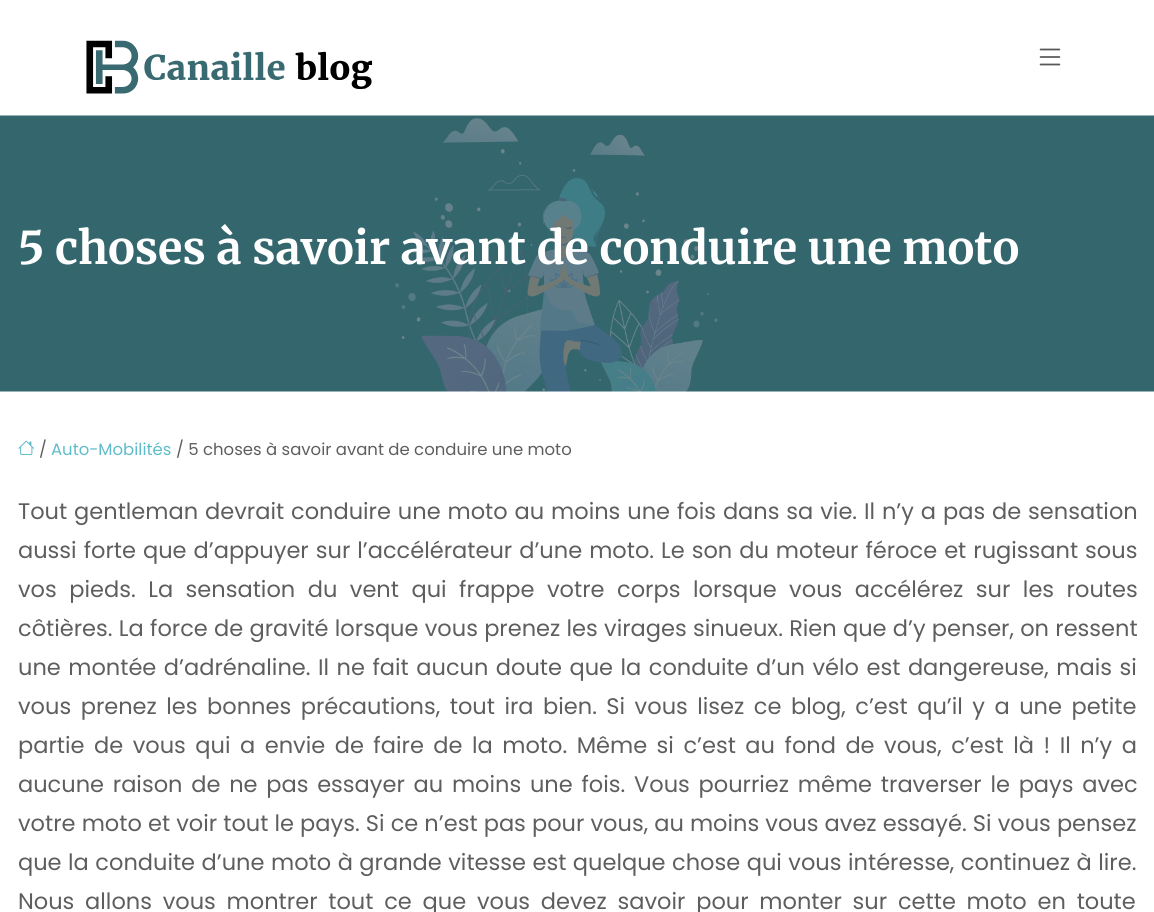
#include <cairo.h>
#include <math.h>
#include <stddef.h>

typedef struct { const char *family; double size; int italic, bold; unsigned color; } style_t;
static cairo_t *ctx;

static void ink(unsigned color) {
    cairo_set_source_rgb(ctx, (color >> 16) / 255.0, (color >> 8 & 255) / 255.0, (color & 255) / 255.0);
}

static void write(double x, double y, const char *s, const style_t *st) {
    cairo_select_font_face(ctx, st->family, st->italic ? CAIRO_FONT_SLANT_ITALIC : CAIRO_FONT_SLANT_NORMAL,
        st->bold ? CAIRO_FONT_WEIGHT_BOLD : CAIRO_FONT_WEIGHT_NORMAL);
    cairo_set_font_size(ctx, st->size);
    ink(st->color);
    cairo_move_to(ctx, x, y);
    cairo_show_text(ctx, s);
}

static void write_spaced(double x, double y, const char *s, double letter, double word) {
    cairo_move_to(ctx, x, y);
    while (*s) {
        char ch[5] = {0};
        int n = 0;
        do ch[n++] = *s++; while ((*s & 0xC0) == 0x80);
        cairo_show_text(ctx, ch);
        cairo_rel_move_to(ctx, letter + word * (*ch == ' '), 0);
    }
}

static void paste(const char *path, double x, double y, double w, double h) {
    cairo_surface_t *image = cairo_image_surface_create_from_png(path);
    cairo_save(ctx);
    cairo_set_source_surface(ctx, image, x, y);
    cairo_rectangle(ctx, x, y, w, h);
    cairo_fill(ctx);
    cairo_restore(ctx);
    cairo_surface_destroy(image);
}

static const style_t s1 = {"Merriweather", 45, 0, 1, 0xffffff};
static const style_t s2 = {"Poppins", 16.5, 0, 0, 0x5e5e5e};
static const style_t s3 = {"Poppins", 16.5, 0, 0, 0x60bcca};

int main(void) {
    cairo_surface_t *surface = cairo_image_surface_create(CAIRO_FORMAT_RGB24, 1154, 912);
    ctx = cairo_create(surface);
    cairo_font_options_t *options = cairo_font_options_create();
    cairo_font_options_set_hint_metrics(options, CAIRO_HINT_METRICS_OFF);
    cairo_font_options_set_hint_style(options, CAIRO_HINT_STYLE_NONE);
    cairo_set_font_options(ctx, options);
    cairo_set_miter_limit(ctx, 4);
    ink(0xffffff);
    cairo_paint(ctx);
    paste("pic1.png", 86, 40, 287, 54);
    paste("pic2.png", 1039, 48, 22, 18);
    paste("pic3.png", 0, 115, 1154, 277);
    write(18, 264, "5 choses à savoir avant de conduire une moto", &s1);
    paste("pic4.png", 18, 440, 16, 15);
    write(39, 455, "/", &s2);
    write(51, 455, "Auto-Mobilités", &s3);
    write(176, 455, "/ 5 choses à savoir avant de conduire une moto", &s2);
    cairo_set_font_size(ctx, 22.5);
    write_spaced(18, 519, "Tout gentleman devrait conduire une moto au moins une fois dans sa vie. Il n’y a pas de sensation", 0, 0.9);
    write_spaced(18, 558, "aussi forte que d’appuyer sur l’accélérateur d’une moto. Le son du moteur féroce et rugissant sous", 0, 1);
    write_spaced(18, 597, "vos pieds. La sensation du vent qui frappe votre corps lorsque vous accélérez sur les routes", 0, 6.5);
    write_spaced(18, 636, "côtières. La force de gravité lorsque vous prenez les virages sinueux. Rien que d’y penser, on ressent", 0, 0.25);
    write_spaced(18, 675, "une montée d’adrénaline. Il ne fait aucun doute que la conduite d’un vélo est dangereuse, mais si", 0, 1.5);
    write_spaced(18, 714, "vous prenez les bonnes précautions, tout ira bien. Si vous lisez ce blog, c’est qu’il y a une petite", 0, 3.5);
    write_spaced(18, 753, "partie de vous qui a envie de faire de la moto. Même si c’est au fond de vous, c’est là ! Il n’y a", 0, 3.5);
    write_spaced(18, 792, "aucune raison de ne pas essayer au moins une fois. Vous pourriez même traverser le pays avec", 0, 2.75);
    write_spaced(18, 831, "votre moto et voir tout le pays. Si ce n’est pas pour vous, au moins vous avez essayé. Si vous pensez", 0, 0.1);
    write_spaced(18, 870, "que la conduite d’une moto à grande vitesse est quelque chose qui vous intéresse, continuez à lire.", 0, 0.5);
    write_spaced(18, 909, "Nous allons vous montrer tout ce que vous devez savoir pour monter sur cette moto en toute", 0, 4.75);
    cairo_surface_write_to_png(surface, "screenshot.png");
    cairo_font_options_destroy(options);
    cairo_destroy(ctx);
    cairo_surface_destroy(surface);
    return 0;
}
